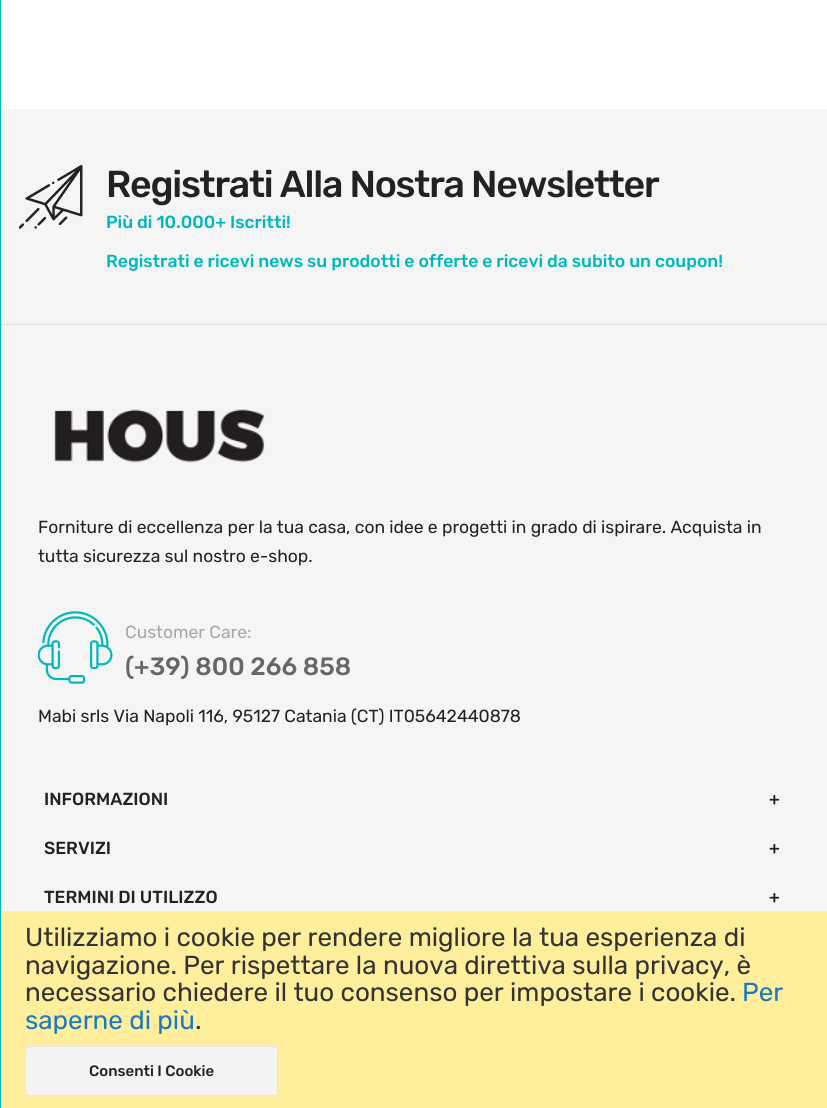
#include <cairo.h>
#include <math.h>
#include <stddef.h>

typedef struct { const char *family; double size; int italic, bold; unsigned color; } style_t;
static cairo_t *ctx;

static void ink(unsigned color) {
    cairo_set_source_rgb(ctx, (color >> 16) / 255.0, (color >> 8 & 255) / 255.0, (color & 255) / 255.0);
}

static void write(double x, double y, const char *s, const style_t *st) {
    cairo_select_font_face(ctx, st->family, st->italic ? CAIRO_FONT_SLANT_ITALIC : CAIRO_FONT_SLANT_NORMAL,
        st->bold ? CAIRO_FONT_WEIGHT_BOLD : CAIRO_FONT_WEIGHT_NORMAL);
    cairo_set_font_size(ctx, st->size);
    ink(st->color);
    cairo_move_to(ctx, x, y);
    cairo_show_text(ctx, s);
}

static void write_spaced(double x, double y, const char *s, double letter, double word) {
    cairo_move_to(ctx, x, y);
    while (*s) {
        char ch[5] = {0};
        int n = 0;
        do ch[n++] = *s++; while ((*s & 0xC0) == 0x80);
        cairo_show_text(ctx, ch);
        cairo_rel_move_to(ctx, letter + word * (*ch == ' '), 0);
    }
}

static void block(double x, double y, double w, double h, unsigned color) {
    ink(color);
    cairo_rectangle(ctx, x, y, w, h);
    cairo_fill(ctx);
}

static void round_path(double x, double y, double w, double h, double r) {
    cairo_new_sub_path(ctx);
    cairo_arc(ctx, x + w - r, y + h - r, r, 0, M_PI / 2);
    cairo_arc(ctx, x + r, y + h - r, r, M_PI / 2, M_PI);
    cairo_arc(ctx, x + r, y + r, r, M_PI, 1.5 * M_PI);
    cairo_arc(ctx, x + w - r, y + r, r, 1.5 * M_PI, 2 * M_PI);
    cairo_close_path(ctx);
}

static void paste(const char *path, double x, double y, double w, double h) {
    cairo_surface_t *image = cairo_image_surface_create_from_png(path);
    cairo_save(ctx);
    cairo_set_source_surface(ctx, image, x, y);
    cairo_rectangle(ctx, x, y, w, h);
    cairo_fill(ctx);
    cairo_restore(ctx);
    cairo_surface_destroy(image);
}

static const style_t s1 = {"Rubik Medium", 17.5, 0, 0, 0x00b8bc};
static const style_t s2 = {"Rubik", 17.5, 0, 0, 0x222222};
static const style_t s3 = {"Rubik", 17.5, 0, 0, 0xa7a7a7};
static const style_t s4 = {"Rubik Medium", 25, 0, 0, 0x666666};
static const style_t s5 = {"Rubik Medium", 17.5, 0, 0, 0x222222};
static const style_t s6 = {"Rubik", 26, 0, 0, 0x333333};
static const style_t s7 = {"Rubik", 26, 0, 0, 0x1979c3};
static const style_t s8 = {"Rubik Medium", 15, 0, 0, 0x222222};

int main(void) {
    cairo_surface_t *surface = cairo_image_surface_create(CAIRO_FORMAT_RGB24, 827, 1108);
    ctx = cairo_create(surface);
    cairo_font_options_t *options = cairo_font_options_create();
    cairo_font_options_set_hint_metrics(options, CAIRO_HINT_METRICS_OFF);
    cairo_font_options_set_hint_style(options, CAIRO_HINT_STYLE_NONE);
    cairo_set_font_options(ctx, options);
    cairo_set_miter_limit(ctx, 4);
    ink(0xffffff);
    cairo_paint(ctx);
    block(1, 109, 826, 802, 0xf5f5f5);
    block(0, 324, 827, 1, 0xe1e1e1);
    block(0, 0, 1, 1108, 0x00b8bc);
    paste("pic1.png", 19, 165, 64, 64);
    cairo_select_font_face(ctx, "Rubik Medium", CAIRO_FONT_SLANT_NORMAL, CAIRO_FONT_WEIGHT_NORMAL);
    cairo_set_font_size(ctx, 37.5);
    ink(0x222222);
    write_spaced(106, 197, "Registrati Alla Nostra Newsletter", -1.25, 0);
    write(106, 228, "Più di 10.000+ Iscritti!", &s1);
    write(106, 267, "Registrati e ricevi news su prodotti e offerte e ricevi da subito un coupon!", &s1);
    paste("pic2.png", 54, 409, 211, 54);
    write(38, 533, "Forniture di eccellenza per la tua casa, con idee e progetti in grado di ispirare. Acquista in", &s2);
    write(38, 562, "tutta sicurezza sul nostro e-shop.", &s2);
    paste("pic3.png", 38, 611, 75, 73);
    write(125, 638, "Customer Care:", &s3);
    write(125, 675, "(+39) 800 266 858", &s4);
    write(38, 722, "Mabi srls Via Napoli 116, 95127 Catania (CT) IT05642440878", &s2);
    write(44, 805, "INFORMAZIONI", &s5);
    write(769, 805, "+", &s5);
    write(44, 854, "SERVIZI", &s5);
    write(769, 854, "+", &s5);
    write(44, 903, "TERMINI DI UTILIZZO", &s5);
    write(769, 903, "+", &s5);
    block(1, 911, 826, 197, 0xffee9c);
    write(25, 946, "Utilizziamo i cookie per rendere migliore la tua esperienza di", &s6);
    write(25, 974, "navigazione. Per rispettare la nuova direttiva sulla privacy, è", &s6);
    write(25, 1001, "necessario chiedere il tuo consenso per impostare i cookie.", &s6);
    write(742, 1001, "Per", &s7);
    write(25, 1029, "saperne di più", &s7);
    write(195, 1029, ".", &s6);
    ink(0xf4f4f4);
    round_path(25.5, 1046.5, 252, 49, 3.5);
    cairo_fill_preserve(ctx);
    ink(0xe6e6e6);
    cairo_set_line_width(ctx, 1);
    cairo_stroke(ctx);
    write(89, 1076, "Consenti I Cookie", &s8);
    cairo_surface_write_to_png(surface, "screenshot.png");
    cairo_font_options_destroy(options);
    cairo_destroy(ctx);
    cairo_surface_destroy(surface);
    return 0;
}
